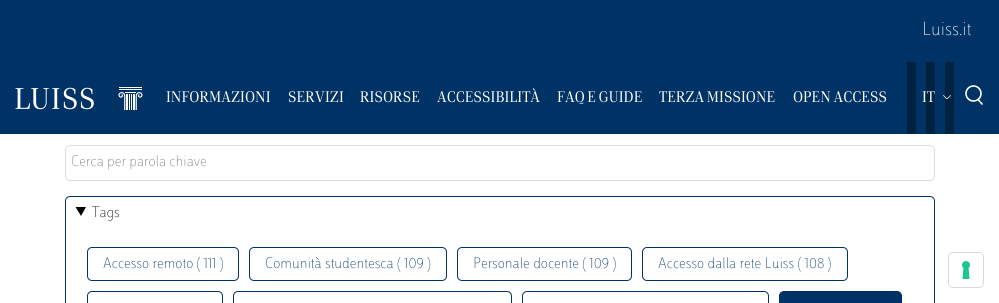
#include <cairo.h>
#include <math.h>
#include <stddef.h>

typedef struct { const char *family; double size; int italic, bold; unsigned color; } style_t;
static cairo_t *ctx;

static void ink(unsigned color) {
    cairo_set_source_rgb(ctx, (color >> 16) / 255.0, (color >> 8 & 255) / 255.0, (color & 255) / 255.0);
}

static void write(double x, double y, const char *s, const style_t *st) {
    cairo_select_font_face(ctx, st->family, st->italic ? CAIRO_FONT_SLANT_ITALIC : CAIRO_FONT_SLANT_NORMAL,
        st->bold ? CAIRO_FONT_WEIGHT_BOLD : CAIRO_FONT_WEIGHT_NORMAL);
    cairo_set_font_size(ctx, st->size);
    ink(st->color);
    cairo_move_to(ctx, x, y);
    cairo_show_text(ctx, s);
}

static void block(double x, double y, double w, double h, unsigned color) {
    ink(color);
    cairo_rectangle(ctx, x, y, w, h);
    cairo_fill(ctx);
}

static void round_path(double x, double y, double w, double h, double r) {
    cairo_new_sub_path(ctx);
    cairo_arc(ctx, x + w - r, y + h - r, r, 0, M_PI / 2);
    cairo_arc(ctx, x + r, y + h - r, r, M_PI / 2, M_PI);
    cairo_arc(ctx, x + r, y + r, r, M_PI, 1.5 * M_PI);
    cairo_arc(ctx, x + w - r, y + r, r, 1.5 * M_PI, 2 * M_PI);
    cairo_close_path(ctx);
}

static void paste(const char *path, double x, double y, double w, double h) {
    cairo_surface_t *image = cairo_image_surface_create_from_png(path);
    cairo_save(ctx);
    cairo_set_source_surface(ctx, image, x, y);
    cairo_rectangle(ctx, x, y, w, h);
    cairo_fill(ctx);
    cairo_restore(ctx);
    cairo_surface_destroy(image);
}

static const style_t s1 = {"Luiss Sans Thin", 20, 0, 0, 0xffffff};
static const style_t s2 = {"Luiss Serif", 16, 0, 0, 0xffffff};
static const style_t s3 = {"Luiss Sans Thin", 16, 0, 0, 0x757575};
static const style_t s4 = {"Luiss Sans Thin", 16, 0, 0, 0x010101};
static const style_t s5 = {"Luiss Sans Thin", 16, 0, 0, 0x003365};

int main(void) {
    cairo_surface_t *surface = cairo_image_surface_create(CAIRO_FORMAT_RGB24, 999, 303);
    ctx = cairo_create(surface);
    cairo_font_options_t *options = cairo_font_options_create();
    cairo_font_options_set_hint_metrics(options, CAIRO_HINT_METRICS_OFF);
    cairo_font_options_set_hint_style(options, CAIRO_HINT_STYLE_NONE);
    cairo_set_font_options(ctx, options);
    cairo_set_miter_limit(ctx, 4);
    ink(0xffffff);
    cairo_paint(ctx);
    block(0, 0, 999, 134, 0x003365);
    write(922, 35, "Luiss.it", &s1);
    block(907, 62, 9, 72, 0x002240);
    block(926, 62, 9, 72, 0x002240);
    block(945, 62, 9, 72, 0x002240);
    paste("pic1.png", 15, 87, 128, 23);
    write(166, 102, "INFORMAZIONI", &s2);
    write(288, 102, "SERVIZI", &s2);
    write(360, 102, "RISORSE", &s2);
    write(437, 102, "ACCESSIBILITÀ", &s2);
    write(557, 102, "FAQ E GUIDE", &s2);
    write(659, 102, "TERZA MISSIONE", &s2);
    write(793, 102, "OPEN ACCESS", &s2);
    write(922, 102, "IT", &s2);
    paste("pic2.png", 943, 95, 8, 4);
    cairo_arc(ctx, 973.5, 93.5, 7.5, 0, 2 * M_PI);
    cairo_set_line_width(ctx, 1.6);
    cairo_stroke(ctx);
    cairo_new_path(ctx);
    cairo_move_to(ctx, 982, 104);
    cairo_line_to(ctx, 978, 99.5);
    cairo_set_line_cap(ctx, CAIRO_LINE_CAP_ROUND);
    cairo_set_line_join(ctx, CAIRO_LINE_JOIN_ROUND);
    cairo_stroke(ctx);
    round_path(65.5, 145.5, 869, 35, 4.5);
    ink(0xdddddd);
    cairo_set_line_width(ctx, 1);
    cairo_set_line_cap(ctx, CAIRO_LINE_CAP_BUTT);
    cairo_set_line_join(ctx, CAIRO_LINE_JOIN_MITER);
    cairo_stroke(ctx);
    write(71, 166, "Cerca per parola chiave", &s3);
    round_path(65.5, 196.5, 869, 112, 4.5);
    ink(0x003365);
    cairo_stroke(ctx);
    ink(0x010101);
    cairo_new_path(ctx);
    cairo_move_to(ctx, 75.5, 207);
    cairo_line_to(ctx, 86, 207);
    cairo_line_to(ctx, 81, 216);
    cairo_close_path(ctx);
    cairo_fill(ctx);
    write(92, 217, "Tags", &s4);
    round_path(87.5, 247.5, 151, 33, 4.5);
    ink(0x003365);
    cairo_stroke(ctx);
    write(103, 268, "Accesso remoto ( 111 )", &s5);
    round_path(249.5, 247.5, 197, 33, 4.5);
    cairo_stroke(ctx);
    write(265, 268, "Comunità studentesca ( 109 )", &s5);
    round_path(457.5, 247.5, 174, 33, 4.5);
    cairo_stroke(ctx);
    write(473, 268, "Personale docente ( 109 )", &s5);
    round_path(642.5, 247.5, 205, 33, 4.5);
    cairo_stroke(ctx);
    write(658, 268, "Accesso dalla rete Luiss ( 108 )", &s5);
    round_path(87.5, 291.5, 135, 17, 4.5);
    cairo_stroke(ctx);
    round_path(233.5, 291.5, 278, 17, 4.5);
    cairo_stroke(ctx);
    round_path(522.5, 291.5, 246, 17, 4.5);
    cairo_stroke(ctx);
    round_path(779.5, 291.5, 122, 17, 4.5);
    cairo_fill_preserve(ctx);
    cairo_stroke(ctx);
    round_path(948.5, 252.5, 35, 35, 4.5);
    ink(0xd9d9d9);
    cairo_stroke(ctx);
    ink(0xffffff);
    round_path(949, 253, 34, 34, 4);
    cairo_fill(ctx);
    paste("pic3.png", 962, 261, 8, 18);
    cairo_surface_write_to_png(surface, "screenshot.png");
    cairo_font_options_destroy(options);
    cairo_destroy(ctx);
    cairo_surface_destroy(surface);
    return 0;
}
